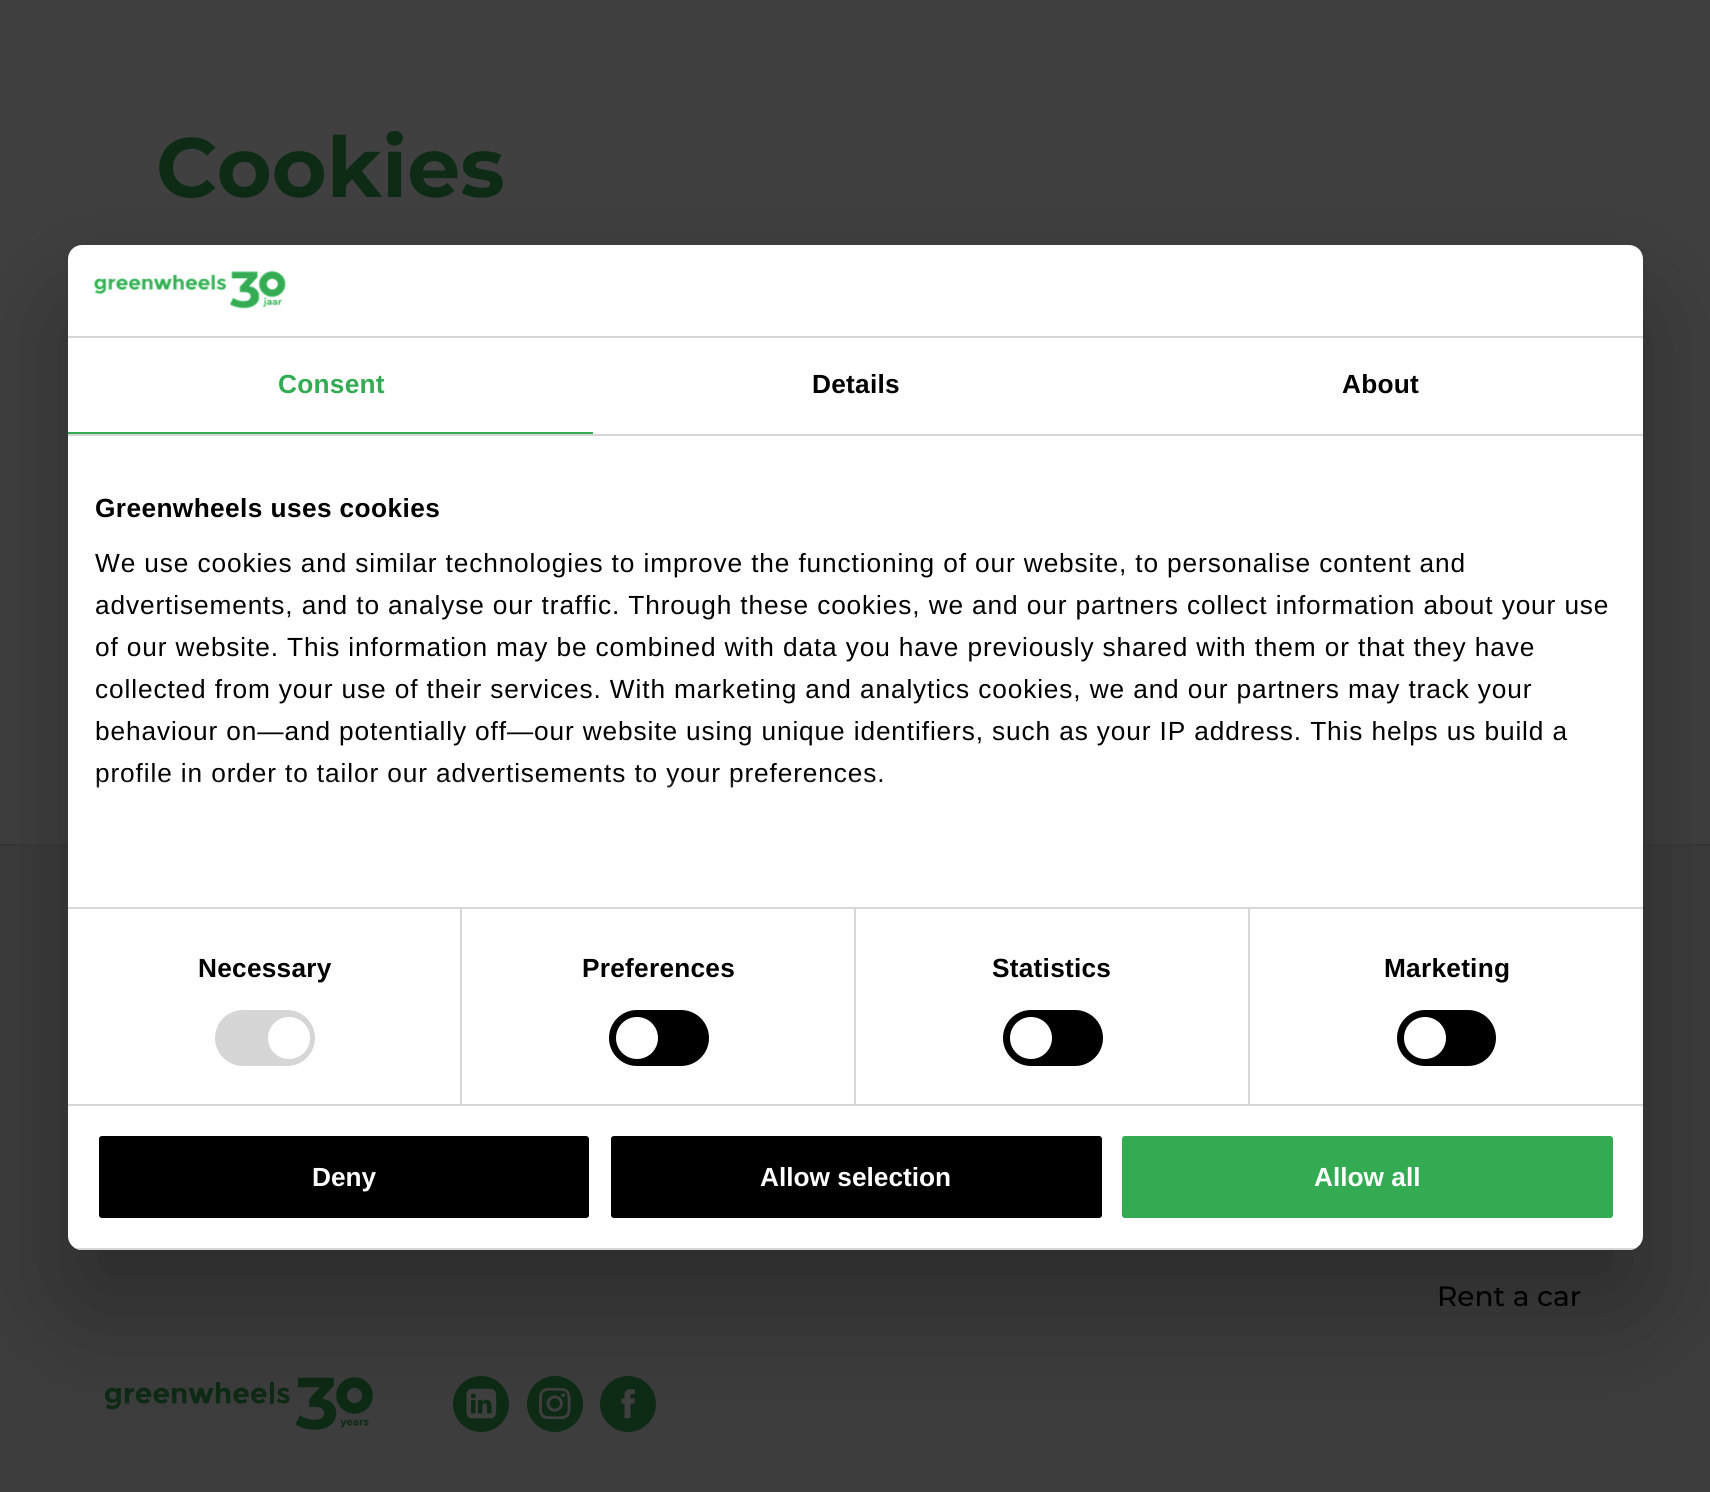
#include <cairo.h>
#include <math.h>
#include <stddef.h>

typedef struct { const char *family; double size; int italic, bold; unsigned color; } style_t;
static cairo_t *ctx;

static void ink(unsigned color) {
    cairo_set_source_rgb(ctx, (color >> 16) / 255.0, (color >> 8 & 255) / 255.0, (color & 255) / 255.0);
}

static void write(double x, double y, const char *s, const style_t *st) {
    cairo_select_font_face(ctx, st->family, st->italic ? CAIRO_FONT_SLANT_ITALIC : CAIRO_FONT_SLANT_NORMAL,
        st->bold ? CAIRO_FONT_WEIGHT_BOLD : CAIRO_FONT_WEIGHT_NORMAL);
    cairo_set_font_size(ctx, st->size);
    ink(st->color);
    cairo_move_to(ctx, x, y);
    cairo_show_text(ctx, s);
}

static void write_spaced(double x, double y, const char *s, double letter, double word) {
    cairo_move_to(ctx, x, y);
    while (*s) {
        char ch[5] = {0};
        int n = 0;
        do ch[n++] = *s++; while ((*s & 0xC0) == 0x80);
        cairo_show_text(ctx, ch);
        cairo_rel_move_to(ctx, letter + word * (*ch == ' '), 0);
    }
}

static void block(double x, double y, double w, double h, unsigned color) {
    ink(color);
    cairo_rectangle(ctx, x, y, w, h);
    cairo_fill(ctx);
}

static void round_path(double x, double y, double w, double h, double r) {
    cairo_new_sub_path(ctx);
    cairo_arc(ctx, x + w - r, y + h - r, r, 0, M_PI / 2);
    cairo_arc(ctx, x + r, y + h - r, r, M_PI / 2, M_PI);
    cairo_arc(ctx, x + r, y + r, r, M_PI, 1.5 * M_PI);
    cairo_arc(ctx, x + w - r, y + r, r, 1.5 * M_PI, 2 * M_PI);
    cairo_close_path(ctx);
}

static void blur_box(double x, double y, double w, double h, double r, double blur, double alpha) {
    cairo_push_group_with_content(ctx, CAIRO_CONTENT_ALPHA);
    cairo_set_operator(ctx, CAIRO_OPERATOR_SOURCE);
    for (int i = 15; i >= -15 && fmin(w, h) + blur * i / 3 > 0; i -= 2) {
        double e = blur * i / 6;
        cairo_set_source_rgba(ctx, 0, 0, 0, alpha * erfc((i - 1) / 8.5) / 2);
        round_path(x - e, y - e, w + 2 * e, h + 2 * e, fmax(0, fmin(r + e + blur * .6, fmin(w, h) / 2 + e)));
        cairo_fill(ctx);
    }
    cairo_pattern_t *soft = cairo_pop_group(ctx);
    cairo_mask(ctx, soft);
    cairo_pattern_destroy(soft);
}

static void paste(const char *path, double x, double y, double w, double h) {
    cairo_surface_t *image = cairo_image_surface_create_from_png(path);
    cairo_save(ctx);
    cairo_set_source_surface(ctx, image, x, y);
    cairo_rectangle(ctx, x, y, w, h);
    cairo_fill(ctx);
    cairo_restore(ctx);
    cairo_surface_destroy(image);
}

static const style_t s1 = {"Montserrat", 84, 0, 1, 0x0d2b15};
static const style_t s2 = {"Montserrat Medium", 28, 0, 0, 0x000000};
static const style_t s3 = {"Liberation Sans", 26.25, 0, 1, 0xffffff};

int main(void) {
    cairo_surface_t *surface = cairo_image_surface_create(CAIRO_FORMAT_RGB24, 1710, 1492);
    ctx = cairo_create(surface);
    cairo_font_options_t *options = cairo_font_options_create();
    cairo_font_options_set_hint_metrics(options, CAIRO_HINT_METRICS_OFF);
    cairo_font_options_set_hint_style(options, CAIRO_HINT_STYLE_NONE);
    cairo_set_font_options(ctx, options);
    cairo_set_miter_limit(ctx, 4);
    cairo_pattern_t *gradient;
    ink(0x404040);
    cairo_paint(ctx);
    write(156, 197, "Cookies", &s1);
    block(0, 846, 1710, 646, 0x3d3d3d);
    block(0, 844, 1710, 2, 0x393939);
    write(1437, 1306, "Rent a car", &s2);
    paste("pic1.png", 105, 1377, 268, 53);
    ink(0x0d2b15);
    cairo_arc(ctx, 481, 1404, 28, 0, 2 * M_PI);
    cairo_fill(ctx);
    paste("pic2.png", 466, 1388, 31, 31);
    cairo_arc(ctx, 555, 1404, 28, 0, 2 * M_PI);
    cairo_fill(ctx);
    paste("pic3.png", 539, 1388, 32, 31);
    cairo_arc(ctx, 628, 1404, 28, 0, 2 * M_PI);
    cairo_fill(ctx);
    paste("pic4.png", 621, 1389, 14, 29);
    ink(0x000000);
    blur_box(68, 301, 1575, 1005, 14, 59.5, 0.3);
    ink(0xffffff);
    round_path(68, 245, 1575, 1005, 14);
    cairo_fill(ctx);
    block(68, 336, 1575, 2, 0xd6d6d6);
    paste("pic5.png", 94, 270, 192, 39);
    block(68, 434, 1575, 2, 0xd6d6d6);
    block(68, 432, 525, 2, 0x32ab52);
    cairo_select_font_face(ctx, "Liberation Sans", CAIRO_FONT_SLANT_NORMAL, CAIRO_FONT_WEIGHT_BOLD);
    cairo_set_font_size(ctx, 26.25);
    write_spaced(278, 393, "Consent", 0.25, 0);
    ink(0x000000);
    write_spaced(812, 393, "Details", 0.25, 0);
    write_spaced(1342, 393, "About", 0.25, 0);
    block(460, 908, 2, 196, 0xd6d6d6);
    block(854, 908, 2, 196, 0xd6d6d6);
    block(1248, 908, 2, 196, 0xd6d6d6);
    block(68, 907, 1575, 2, 0xd6d6d6);
    ink(0x000000);
    write_spaced(95, 517, "Greenwheels uses cookies", 0.4, 0);
    cairo_select_font_face(ctx, "Liberation Sans", CAIRO_FONT_SLANT_NORMAL, CAIRO_FONT_WEIGHT_NORMAL);
    write_spaced(95, 572, "We use cookies and similar technologies to improve the functioning of our website, to personalise content and", 0.88, 0);
    write_spaced(95, 614, "advertisements, and to analyse our traffic. Through these cookies, we and our partners collect information about your use", 0.88, 0);
    write_spaced(95, 656, "of our website. This information may be combined with data you have previously shared with them or that they have", 0.88, 0);
    write_spaced(95, 698, "collected from your use of their services. With marketing and analytics cookies, we and our partners may track your", 0.88, 0);
    write_spaced(95, 740, "behaviour on—and potentially off—our website using unique identifiers, such as your IP address. This helps us build a", 0.88, 0);
    write_spaced(95, 782, "profile in order to tailor our advertisements to your preferences.", 0.88, 0);
    gradient = cairo_pattern_create_linear(844, 906, 844, 775);
    cairo_pattern_add_color_stop_rgba(gradient, 0, 1, 1, 1, 1);
    cairo_pattern_add_color_stop_rgba(gradient, 0.5, 1, 1, 1, 0.8);
    cairo_pattern_add_color_stop_rgba(gradient, 1, 1, 1, 1, 0);
    cairo_set_source(ctx, gradient);
    cairo_pattern_destroy(gradient);
    cairo_rectangle(ctx, 96, 777, 786, 11);
    cairo_fill(ctx);
    block(68, 1104, 1575, 2, 0xd6d6d6);
    cairo_select_font_face(ctx, "Liberation Sans", CAIRO_FONT_SLANT_NORMAL, CAIRO_FONT_WEIGHT_BOLD);
    ink(0x000000);
    write_spaced(198, 977, "Necessary", 0.25, 0);
    ink(0xd6d6d6);
    round_path(215, 1010, 100, 56, 28);
    cairo_fill(ctx);
    ink(0xffffff);
    cairo_arc(ctx, 289, 1038, 21, 0, 2 * M_PI);
    cairo_fill(ctx);
    ink(0x000000);
    write_spaced(582, 977, "Preferences", 0.25, 0);
    round_path(609, 1010, 100, 56, 28);
    cairo_fill(ctx);
    ink(0xffffff);
    cairo_arc(ctx, 637, 1038, 21, 0, 2 * M_PI);
    cairo_fill(ctx);
    ink(0x000000);
    write_spaced(992, 977, "Statistics", 0.25, 0);
    round_path(1003, 1010, 100, 56, 28);
    cairo_fill(ctx);
    ink(0xffffff);
    cairo_arc(ctx, 1031, 1038, 21, 0, 2 * M_PI);
    cairo_fill(ctx);
    ink(0x000000);
    write_spaced(1384, 977, "Marketing", 0.25, 0);
    round_path(1397, 1010, 99, 56, 28);
    cairo_fill(ctx);
    ink(0xffffff);
    cairo_arc(ctx, 1425, 1038, 21, 0, 2 * M_PI);
    cairo_fill(ctx);
    cairo_save(ctx);
    round_path(68, 245, 1575, 1005, 14);
    cairo_clip(ctx);
    block(68, 1248, 1575, 2, 0xd6d6d6);
    cairo_restore(ctx);
    ink(0x000000);
    round_path(97, 1134, 494, 86, 5);
    cairo_fill_preserve(ctx);
    ink(0xffffff);
    cairo_set_line_width(ctx, 4);
    cairo_stroke(ctx);
    write(312, 1186, "Deny", &s3);
    ink(0x000000);
    round_path(609, 1134, 495, 86, 5);
    cairo_fill_preserve(ctx);
    ink(0xffffff);
    cairo_stroke(ctx);
    write(760, 1186, "Allow selection", &s3);
    ink(0x32ab52);
    round_path(1120, 1134, 495, 86, 5);
    cairo_fill_preserve(ctx);
    ink(0xffffff);
    cairo_stroke(ctx);
    write(1314, 1186, "Allow all", &s3);
    cairo_surface_write_to_png(surface, "screenshot.png");
    cairo_font_options_destroy(options);
    cairo_destroy(ctx);
    cairo_surface_destroy(surface);
    return 0;
}
